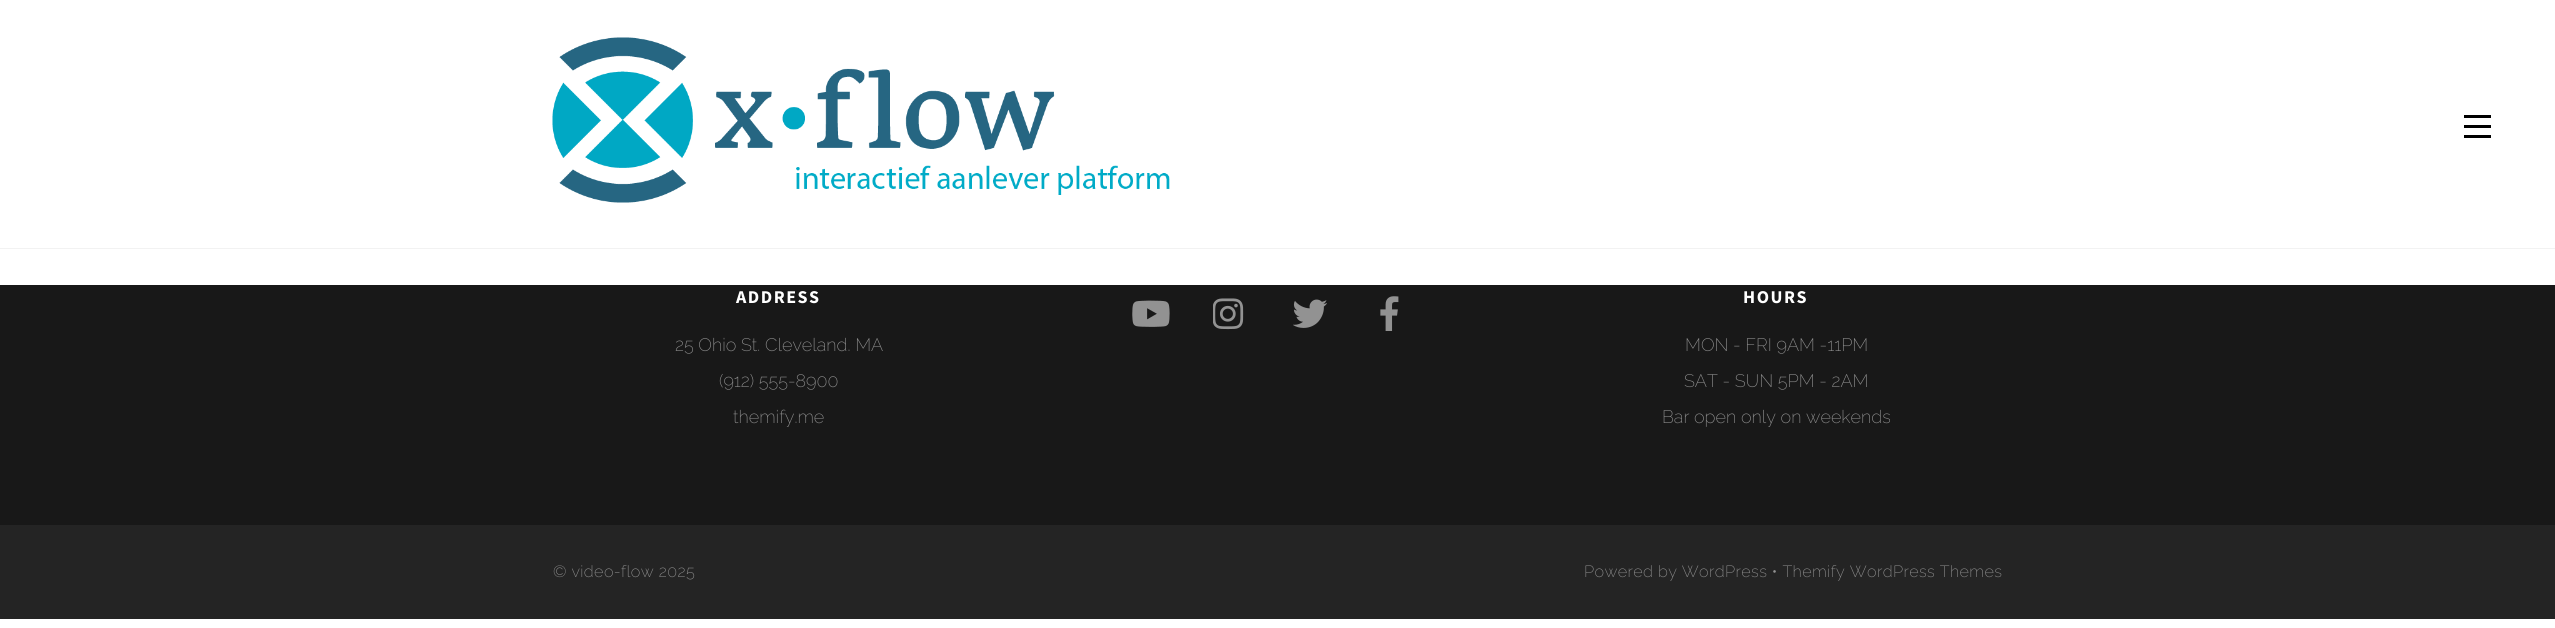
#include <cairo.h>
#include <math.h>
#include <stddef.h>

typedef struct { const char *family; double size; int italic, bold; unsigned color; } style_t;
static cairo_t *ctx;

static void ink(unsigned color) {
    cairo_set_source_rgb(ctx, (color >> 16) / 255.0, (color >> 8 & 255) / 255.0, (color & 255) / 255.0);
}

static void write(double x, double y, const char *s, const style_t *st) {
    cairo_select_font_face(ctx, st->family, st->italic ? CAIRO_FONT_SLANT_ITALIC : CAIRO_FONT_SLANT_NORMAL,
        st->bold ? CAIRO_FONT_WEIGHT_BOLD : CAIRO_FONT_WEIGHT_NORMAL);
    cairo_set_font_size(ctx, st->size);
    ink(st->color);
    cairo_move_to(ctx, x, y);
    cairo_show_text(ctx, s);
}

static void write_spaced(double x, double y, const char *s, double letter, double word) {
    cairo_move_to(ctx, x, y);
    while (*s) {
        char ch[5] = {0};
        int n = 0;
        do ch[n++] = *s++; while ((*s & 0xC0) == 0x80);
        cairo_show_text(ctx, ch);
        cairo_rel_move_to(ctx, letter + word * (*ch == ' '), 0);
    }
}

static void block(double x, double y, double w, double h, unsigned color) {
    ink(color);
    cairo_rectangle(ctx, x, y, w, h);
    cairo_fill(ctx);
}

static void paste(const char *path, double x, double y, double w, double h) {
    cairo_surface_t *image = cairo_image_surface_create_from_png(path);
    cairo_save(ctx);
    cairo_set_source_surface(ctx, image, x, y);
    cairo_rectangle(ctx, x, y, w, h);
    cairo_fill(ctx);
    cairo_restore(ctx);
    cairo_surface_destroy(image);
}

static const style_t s1 = {"Raleway ExtraLight", 18, 0, 0, 0x929292};

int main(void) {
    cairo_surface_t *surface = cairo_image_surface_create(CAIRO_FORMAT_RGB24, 2555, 628);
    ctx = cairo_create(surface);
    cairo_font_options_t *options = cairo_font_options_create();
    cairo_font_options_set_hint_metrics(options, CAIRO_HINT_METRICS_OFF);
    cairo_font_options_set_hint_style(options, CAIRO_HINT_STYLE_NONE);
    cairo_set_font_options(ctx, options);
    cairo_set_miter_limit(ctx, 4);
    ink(0xffffff);
    cairo_paint(ctx);
    block(0, 248, 2555, 1, 0xf2f2f2);
    paste("pic1.png", 552, 37, 618, 166);
    block(2464, 135, 27, 3, 0x000000);
    block(2464, 115, 27, 3, 0x000000);
    block(2464, 125, 27, 3, 0x000000);
    block(0, 285, 2555, 240, 0x181818);
    cairo_select_font_face(ctx, "Source Sans Pro", CAIRO_FONT_SLANT_NORMAL, CAIRO_FONT_WEIGHT_BOLD);
    cairo_set_font_size(ctx, 18);
    ink(0xffffff);
    write_spaced(736, 303, "ADDRESS", 1.5, 0);
    write(675, 351, "25 Ohio St. Cleveland. MA", &s1);
    write(719, 387, "(912) 555-8900", &s1);
    write(733, 423, "themify.me", &s1);
    paste("pic2.png", 1132, 300, 38, 27);
    paste("pic3.png", 1213, 298, 31, 32);
    paste("pic4.png", 1293, 299, 34, 29);
    paste("pic5.png", 1380, 296, 19, 35);
    cairo_select_font_face(ctx, "Source Sans Pro", CAIRO_FONT_SLANT_NORMAL, CAIRO_FONT_WEIGHT_BOLD);
    ink(0xffffff);
    write_spaced(1743, 303, "HOURS", 1.5, 0);
    write(1685, 351, "MON - FRI 9AM -11PM", &s1);
    write(1684, 387, "SAT - SUN 5PM - 2AM", &s1);
    write(1662, 423, "Bar open only on weekends", &s1);
    block(0, 525, 2555, 94, 0x242424);
    cairo_set_font_size(ctx, 16.2);
    ink(0x929292);
    write_spaced(553, 577, "© video-flow 2025", 0.4, 0);
    write_spaced(1584, 577, "Powered by WordPress • Themify WordPress Themes", 0.4, 0);
    cairo_surface_write_to_png(surface, "screenshot.png");
    cairo_font_options_destroy(options);
    cairo_destroy(ctx);
    cairo_surface_destroy(surface);
    return 0;
}
